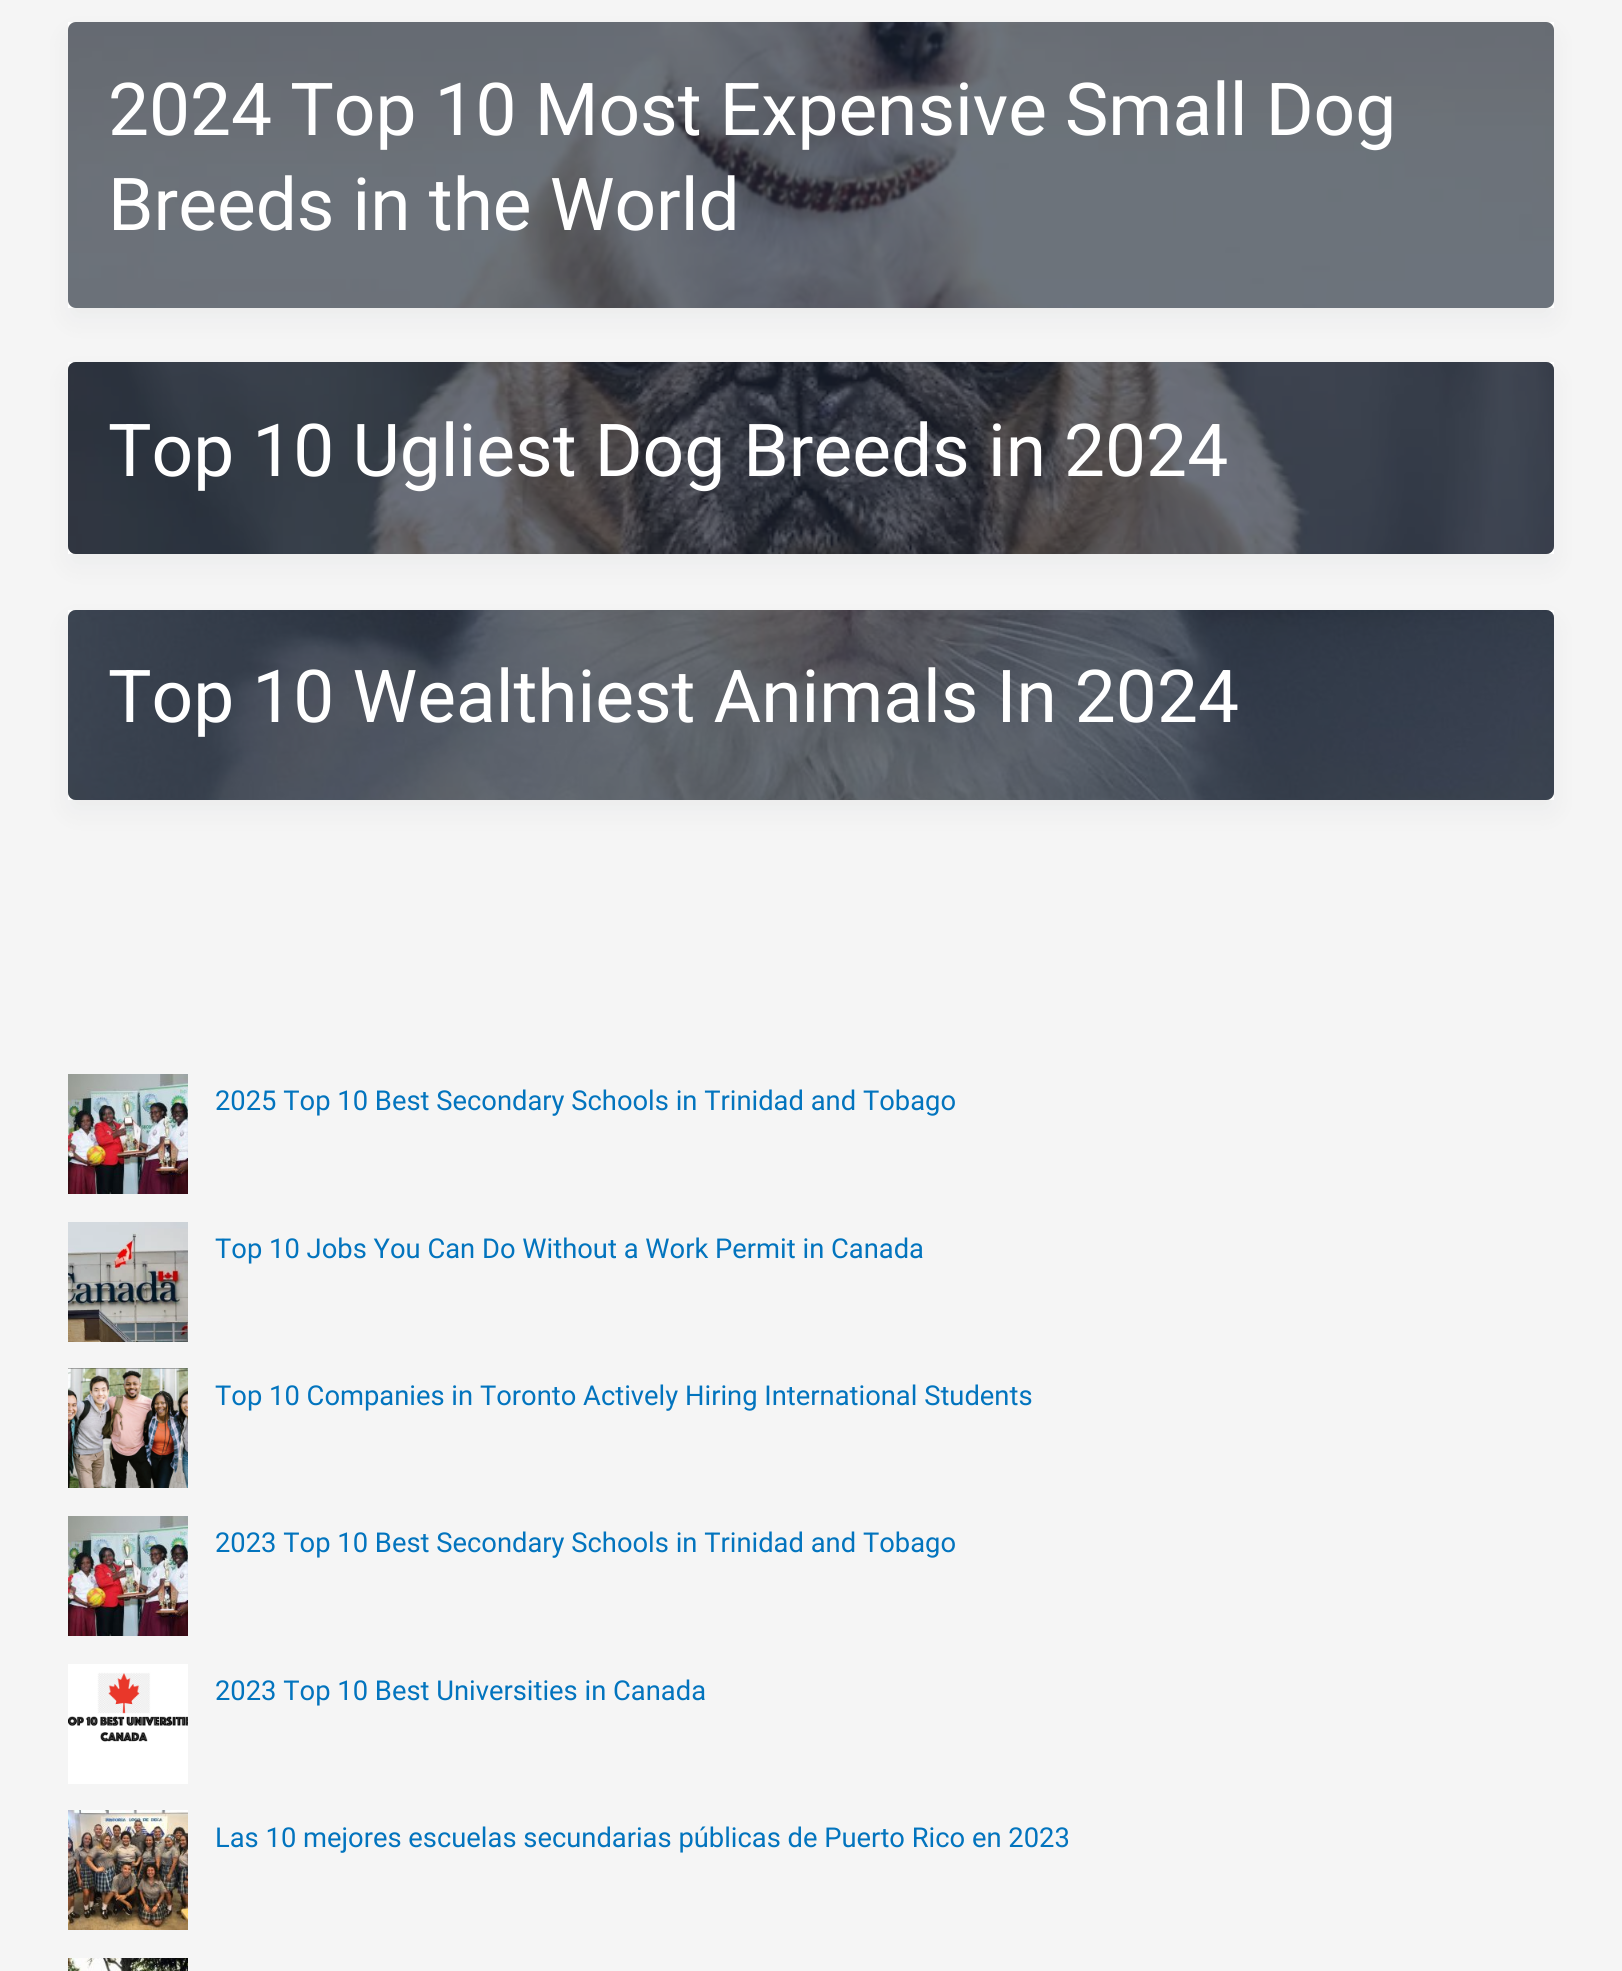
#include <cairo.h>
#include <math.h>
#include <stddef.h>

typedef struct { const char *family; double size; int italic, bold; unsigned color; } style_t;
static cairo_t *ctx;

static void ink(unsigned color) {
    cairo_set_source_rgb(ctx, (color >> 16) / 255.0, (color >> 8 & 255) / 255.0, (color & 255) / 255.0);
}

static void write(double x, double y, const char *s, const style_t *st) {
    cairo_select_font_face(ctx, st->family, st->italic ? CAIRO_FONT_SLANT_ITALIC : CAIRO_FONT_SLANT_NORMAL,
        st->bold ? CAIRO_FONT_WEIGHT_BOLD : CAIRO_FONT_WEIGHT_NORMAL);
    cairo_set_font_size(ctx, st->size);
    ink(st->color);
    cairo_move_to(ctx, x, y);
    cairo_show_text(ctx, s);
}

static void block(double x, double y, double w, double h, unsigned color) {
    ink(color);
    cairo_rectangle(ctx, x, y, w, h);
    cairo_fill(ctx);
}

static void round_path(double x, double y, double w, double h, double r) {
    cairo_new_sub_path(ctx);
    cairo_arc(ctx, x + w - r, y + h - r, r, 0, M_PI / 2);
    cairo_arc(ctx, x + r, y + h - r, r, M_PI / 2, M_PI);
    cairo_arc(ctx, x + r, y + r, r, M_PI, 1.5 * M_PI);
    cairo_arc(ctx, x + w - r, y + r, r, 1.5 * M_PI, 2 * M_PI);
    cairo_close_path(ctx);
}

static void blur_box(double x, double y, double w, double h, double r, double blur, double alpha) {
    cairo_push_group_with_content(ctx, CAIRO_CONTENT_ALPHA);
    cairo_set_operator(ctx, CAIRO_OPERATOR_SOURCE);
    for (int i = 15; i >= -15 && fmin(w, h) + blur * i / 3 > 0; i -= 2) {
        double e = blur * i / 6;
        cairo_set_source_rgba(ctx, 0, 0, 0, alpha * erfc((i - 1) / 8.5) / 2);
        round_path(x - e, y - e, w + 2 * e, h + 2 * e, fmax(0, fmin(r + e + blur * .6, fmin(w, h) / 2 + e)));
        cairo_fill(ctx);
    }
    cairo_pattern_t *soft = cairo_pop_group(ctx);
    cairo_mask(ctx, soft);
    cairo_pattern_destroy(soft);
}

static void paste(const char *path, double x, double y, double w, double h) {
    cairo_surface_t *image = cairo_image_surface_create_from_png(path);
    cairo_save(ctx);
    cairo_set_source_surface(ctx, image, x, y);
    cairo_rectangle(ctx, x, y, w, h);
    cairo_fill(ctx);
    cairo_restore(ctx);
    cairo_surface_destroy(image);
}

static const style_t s1 = {"Roboto", 73, 0, 0, 0xffffff};
static const style_t s2 = {"Roboto", 27.35, 0, 0, 0x0274be};

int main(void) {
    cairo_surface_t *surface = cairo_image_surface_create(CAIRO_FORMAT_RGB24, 1622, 1971);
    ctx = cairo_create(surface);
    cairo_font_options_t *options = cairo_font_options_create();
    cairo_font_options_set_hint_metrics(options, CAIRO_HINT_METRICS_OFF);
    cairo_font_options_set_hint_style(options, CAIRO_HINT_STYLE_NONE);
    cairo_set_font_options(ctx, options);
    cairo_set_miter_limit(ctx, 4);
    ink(0xf5f5f5);
    cairo_paint(ctx);
    ink(0x101828);
    blur_box(72, 38, 1478, 278, 0, 15, 0.05);
    block(68, 22, 1486, 286, 0xffffff);
    paste("pic1.png", 68, 22, 1486, 286);
    cairo_set_source_rgba(ctx, 0.118, 0.161, 0.231, 0.65);
    round_path(68, 22, 1486, 286, 8);
    cairo_fill(ctx);
    write(108, 135, "2024 Top 10 Most Expensive Small Dog", &s1);
    write(108, 230, "Breeds in the World", &s1);
    ink(0x101828);
    blur_box(72, 378, 1478, 184, 0, 15, 0.05);
    block(68, 362, 1486, 192, 0xffffff);
    paste("pic2.png", 68, 362, 1486, 192);
    cairo_set_source_rgba(ctx, 0.118, 0.161, 0.231, 0.65);
    round_path(68, 362, 1486, 192, 8);
    cairo_fill(ctx);
    write(108, 476, "Top 10 Ugliest Dog Breeds in 2024", &s1);
    ink(0x101828);
    blur_box(72, 626, 1478, 182, 0, 15, 0.05);
    block(68, 610, 1486, 190, 0xffffff);
    paste("pic3.png", 68, 610, 1486, 190);
    cairo_set_source_rgba(ctx, 0.118, 0.161, 0.231, 0.65);
    round_path(68, 610, 1486, 190, 8);
    cairo_fill(ctx);
    write(108, 722, "Top 10 Wealthiest Animals In 2024", &s1);
    paste("pic4.png", 68, 1074, 120, 120);
    write(215, 1110, "2025 Top 10 Best Secondary Schools in Trinidad and Tobago", &s2);
    paste("pic5.png", 68, 1222, 120, 120);
    write(215, 1258, "Top 10 Jobs You Can Do Without a Work Permit in Canada", &s2);
    paste("pic6.png", 68, 1368, 120, 120);
    write(215, 1405, "Top 10 Companies in Toronto Actively Hiring International Students", &s2);
    paste("pic4.png", 68, 1516, 120, 120);
    write(215, 1552, "2023 Top 10 Best Secondary Schools in Trinidad and Tobago", &s2);
    paste("pic7.png", 68, 1664, 120, 120);
    write(215, 1700, "2023 Top 10 Best Universities in Canada", &s2);
    paste("pic8.png", 68, 1810, 120, 120);
    write(215, 1847, "Las 10 mejores escuelas secundarias públicas de Puerto Rico en 2023", &s2);
    paste("pic9.png", 68, 1958, 120, 13);
    cairo_surface_write_to_png(surface, "screenshot.png");
    cairo_font_options_destroy(options);
    cairo_destroy(ctx);
    cairo_surface_destroy(surface);
    return 0;
}
